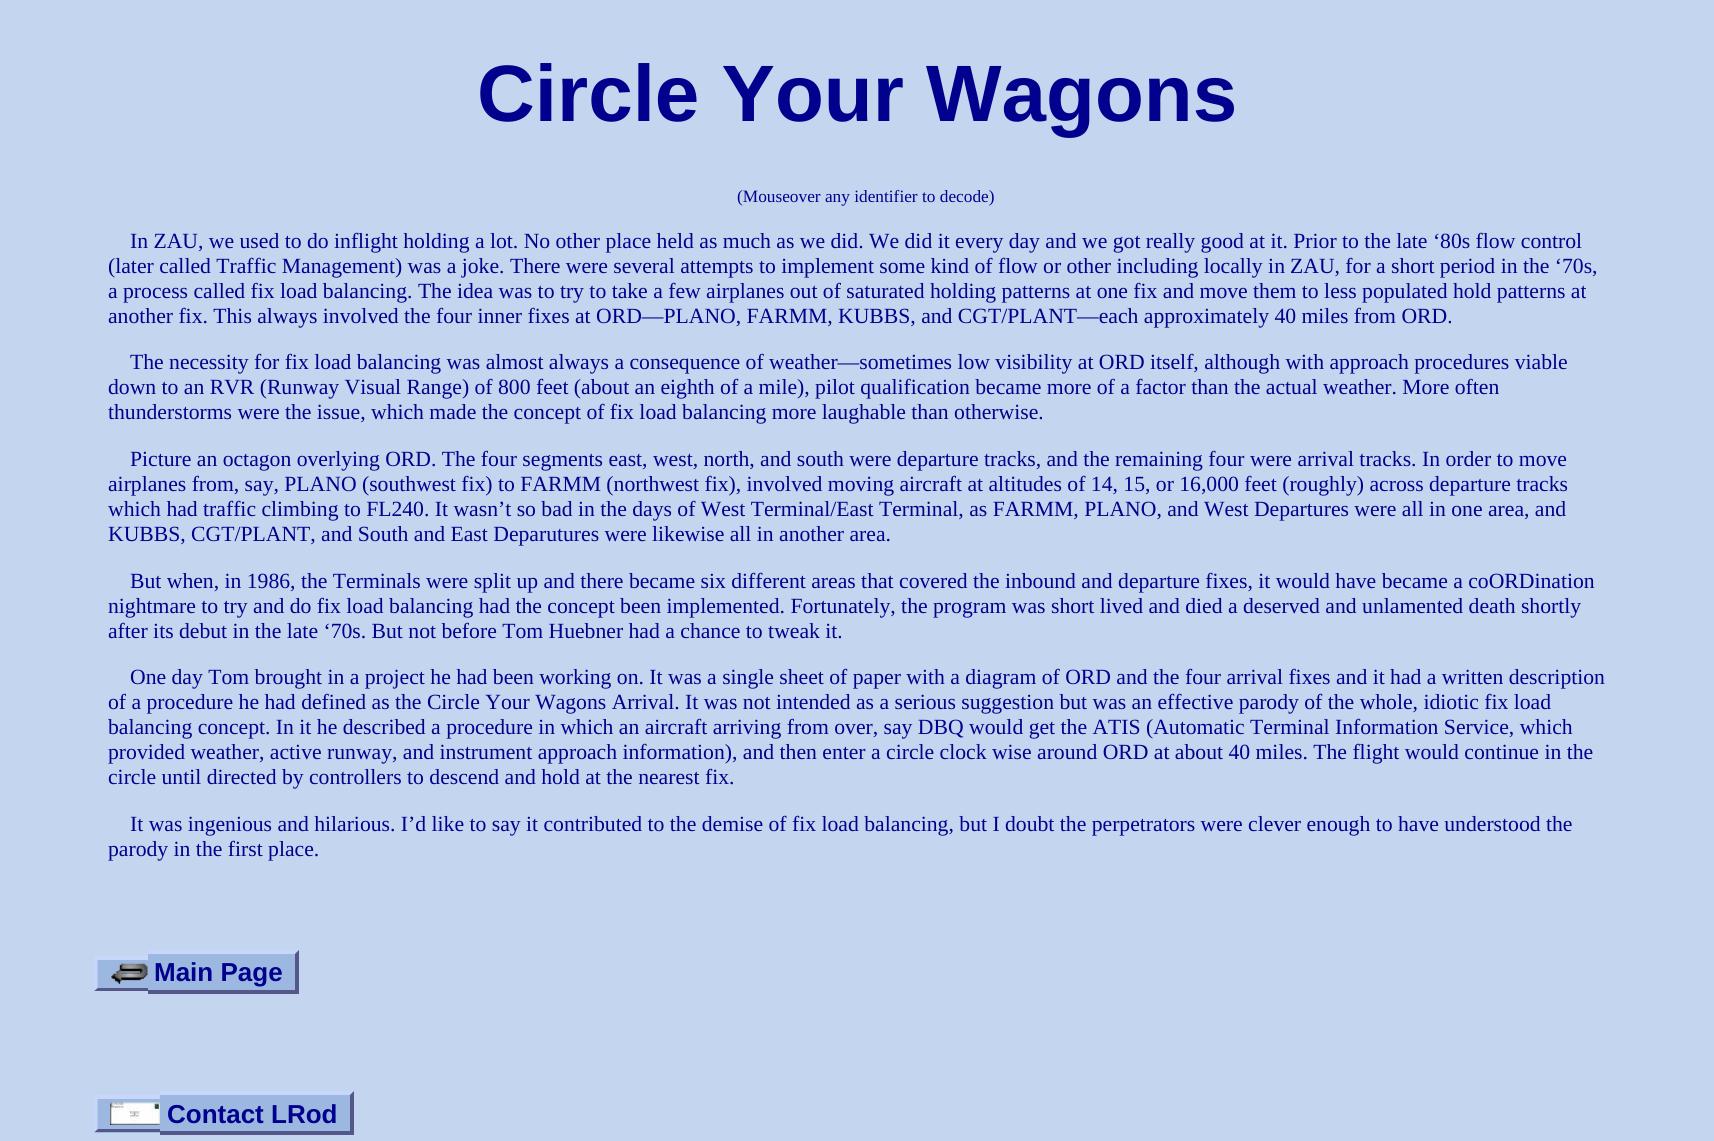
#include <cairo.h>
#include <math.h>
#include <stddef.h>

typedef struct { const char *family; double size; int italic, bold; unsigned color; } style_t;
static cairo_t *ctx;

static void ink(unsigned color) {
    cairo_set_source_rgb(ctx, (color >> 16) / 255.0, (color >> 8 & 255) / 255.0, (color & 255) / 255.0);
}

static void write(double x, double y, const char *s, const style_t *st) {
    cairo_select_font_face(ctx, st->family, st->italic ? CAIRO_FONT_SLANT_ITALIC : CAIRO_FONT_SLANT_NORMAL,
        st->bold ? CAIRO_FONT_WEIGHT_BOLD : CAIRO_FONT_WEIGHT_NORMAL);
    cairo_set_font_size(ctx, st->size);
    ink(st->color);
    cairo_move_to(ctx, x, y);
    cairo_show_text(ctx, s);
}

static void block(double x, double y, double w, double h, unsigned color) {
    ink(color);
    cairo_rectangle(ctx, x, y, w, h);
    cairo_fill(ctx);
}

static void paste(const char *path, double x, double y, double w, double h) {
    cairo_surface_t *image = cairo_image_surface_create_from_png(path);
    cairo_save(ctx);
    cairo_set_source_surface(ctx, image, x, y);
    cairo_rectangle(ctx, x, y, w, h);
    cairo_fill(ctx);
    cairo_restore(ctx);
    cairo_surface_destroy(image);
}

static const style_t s1 = {"Liberation Sans", 80, 0, 1, 0x00018d};
static const style_t s2 = {"Liberation Serif", 17.3, 0, 0, 0x00018d};
static const style_t s3 = {"Liberation Serif", 21.67, 0, 0, 0x00018d};
static const style_t s4 = {"Liberation Sans", 26, 0, 1, 0x00018d};

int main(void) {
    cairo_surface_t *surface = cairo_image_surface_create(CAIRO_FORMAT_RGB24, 1714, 1141);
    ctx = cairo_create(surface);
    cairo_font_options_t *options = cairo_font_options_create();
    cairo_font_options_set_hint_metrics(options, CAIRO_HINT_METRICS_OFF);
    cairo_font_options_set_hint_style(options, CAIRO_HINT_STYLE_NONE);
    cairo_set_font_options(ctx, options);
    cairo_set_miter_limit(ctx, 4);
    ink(0xc3d5ef);
    cairo_paint(ctx);
    write(477, 121, "Circle Your Wagons", &s1);
    write(737, 202, "(Mouseover any identifier to decode)", &s2);
    write(130, 248, "In ZAU, we used to do inflight holding a lot. No other place held as much as we did. We did it every day and we got really good at it. Prior to the late ‘80s flow control", &s3);
    write(108, 273, "(later called Traffic Management) was a joke. There were several attempts to implement some kind of flow or other including locally in", &s3);
    write(1290, 273, "ZAU, for a short period in the ‘70s,", &s3);
    write(108, 298, "a process called fix load balancing. The idea was to try to take a few airplanes out of saturated holding patterns at one fix and move them to less populated hold patterns at", &s3);
    write(108, 323, "another fix. This always involved the four inner fixes at ORD—PLANO, FARMM, KUBBS, and CGT/PLANT—each approximately 40 miles from ORD.", &s3);
    write(130, 369, "The necessity for fix load balancing was almost always a consequence of weather—sometimes low visibility at ORD itself, although with approach procedures viable", &s3);
    write(108, 394, "down to an RVR (Runway Visual Range) of 800 feet (about an eighth of a mile), pilot qualification became more of a factor than the actual weather. More often", &s3);
    write(108, 419, "thunderstorms were the issue, which made the concept of fix load balancing more laughable than otherwise.", &s3);
    write(130, 466, "Picture an octagon overlying ORD. The four segments east, west, north, and south were departure tracks, and the remaining four were arrival tracks. In order to move", &s3);
    write(108, 491, "airplanes from, say, PLANO (southwest fix) to FARMM (northwest fix), involved moving aircraft at altitudes of 14, 15, or 16,000 feet (roughly) across departure tracks", &s3);
    write(108, 516, "which had traffic climbing to FL240. It wasn’t so bad in the days of West Terminal/East Terminal, as FARMM, PLANO, and West Departures were all in one area, and", &s3);
    write(108, 541, "KUBBS, CGT/PLANT, and South and East Deparutures were likewise all in another area.", &s3);
    write(130, 588, "But when, in 1986, the Terminals were split up and there became six different areas that covered the inbound and departure fixes, it would have became a coORDination", &s3);
    write(108, 613, "nightmare to try and do fix load balancing had the concept been implemented. Fortunately, the program was short lived and died a deserved and unlamented death shortly", &s3);
    write(108, 638, "after its debut in the late ‘70s. But not before Tom Huebner had a chance to tweak it.", &s3);
    write(130, 684, "One day Tom brought in a project he had been working on. It was a single sheet of paper with a diagram of ORD and the four arrival fixes and it had a written description", &s3);
    write(108, 709, "of a procedure he had defined as the Circle Your Wagons Arrival. It was not intended as a serious suggestion but was an effective parody of the whole, idiotic fix load", &s3);
    write(108, 734, "balancing concept. In it he described a procedure in which an aircraft arriving from over, say DBQ would get the ATIS (Automatic Terminal Information Service, which", &s3);
    write(108, 759, "provided weather, active runway, and instrument approach information), and then enter a circle clock wise around ORD at about 40 miles. The flight would continue in the", &s3);
    write(108, 784, "circle until directed by controllers to descend and hold at the nearest fix.", &s3);
    write(130, 831, "It was ingenious and hilarious. I’d like to say it contributed to the demise of fix load balancing, but I doubt the perpetrators were clever enough to have understood the", &s3);
    write(108, 856, "parody in the first place.", &s3);
    block(94, 960, 54, 31, 0x9cb7e0);
    paste("pic1.png", 110, 963, 38, 21);
    block(148, 950, 151, 40, 0x9cb7e0);
    write(154, 981, "Main Page", &s4);
    block(94, 956, 54, 4, 0xc9d6fb);
    ink(0x54578a);
    cairo_new_path(ctx);
    cairo_move_to(ctx, 148, 991);
    cairo_line_to(ctx, 94, 991);
    cairo_line_to(ctx, 98, 988);
    cairo_line_to(ctx, 148, 988);
    cairo_close_path(ctx);
    cairo_fill(ctx);
    ink(0xc9d6fb);
    cairo_new_path(ctx);
    cairo_move_to(ctx, 94, 991);
    cairo_line_to(ctx, 94, 956);
    cairo_line_to(ctx, 97.5, 960);
    cairo_line_to(ctx, 97.5, 987.5);
    cairo_close_path(ctx);
    cairo_fill(ctx);
    cairo_new_path(ctx);
    cairo_move_to(ctx, 148, 950);
    cairo_line_to(ctx, 299, 950);
    cairo_line_to(ctx, 295, 954);
    cairo_line_to(ctx, 148, 954);
    cairo_close_path(ctx);
    cairo_fill(ctx);
    ink(0x54578a);
    cairo_new_path(ctx);
    cairo_move_to(ctx, 299, 950);
    cairo_line_to(ctx, 299, 994);
    cairo_line_to(ctx, 295, 990);
    cairo_line_to(ctx, 295, 954);
    cairo_close_path(ctx);
    cairo_fill(ctx);
    block(148, 990, 151, 4, 0x54578a);
    block(94, 1099, 66, 34, 0x9cb7e0);
    paste("pic2.png", 110, 1102, 50, 23);
    block(166, 1091, 188, 40, 0x9cb7e0);
    write(167, 1123, "Contact LRod", &s4);
    block(94, 1095, 66, 4, 0xc9d6fb);
    ink(0x54578a);
    cairo_new_path(ctx);
    cairo_move_to(ctx, 160, 1132);
    cairo_line_to(ctx, 94, 1132);
    cairo_line_to(ctx, 98, 1129);
    cairo_line_to(ctx, 160, 1129);
    cairo_close_path(ctx);
    cairo_fill(ctx);
    ink(0xc9d6fb);
    cairo_new_path(ctx);
    cairo_move_to(ctx, 94, 1132.5);
    cairo_line_to(ctx, 94, 1095);
    cairo_line_to(ctx, 97.5, 1099);
    cairo_line_to(ctx, 97.5, 1129);
    cairo_close_path(ctx);
    cairo_fill(ctx);
    block(160, 1091, 6, 44, 0x9cb7e0);
    block(160, 1091, 6, 4, 0xc9d6fb);
    block(160, 1131, 6, 4, 0x54578a);
    ink(0xc9d6fb);
    cairo_new_path(ctx);
    cairo_move_to(ctx, 166, 1091);
    cairo_line_to(ctx, 354, 1091);
    cairo_line_to(ctx, 350, 1095);
    cairo_line_to(ctx, 166, 1095);
    cairo_close_path(ctx);
    cairo_fill(ctx);
    ink(0x54578a);
    cairo_new_path(ctx);
    cairo_move_to(ctx, 354, 1091);
    cairo_line_to(ctx, 354, 1135);
    cairo_line_to(ctx, 350, 1131);
    cairo_line_to(ctx, 350, 1095);
    cairo_close_path(ctx);
    cairo_fill(ctx);
    block(166, 1131, 188, 4, 0x54578a);
    cairo_surface_write_to_png(surface, "screenshot.png");
    cairo_font_options_destroy(options);
    cairo_destroy(ctx);
    cairo_surface_destroy(surface);
    return 0;
}
